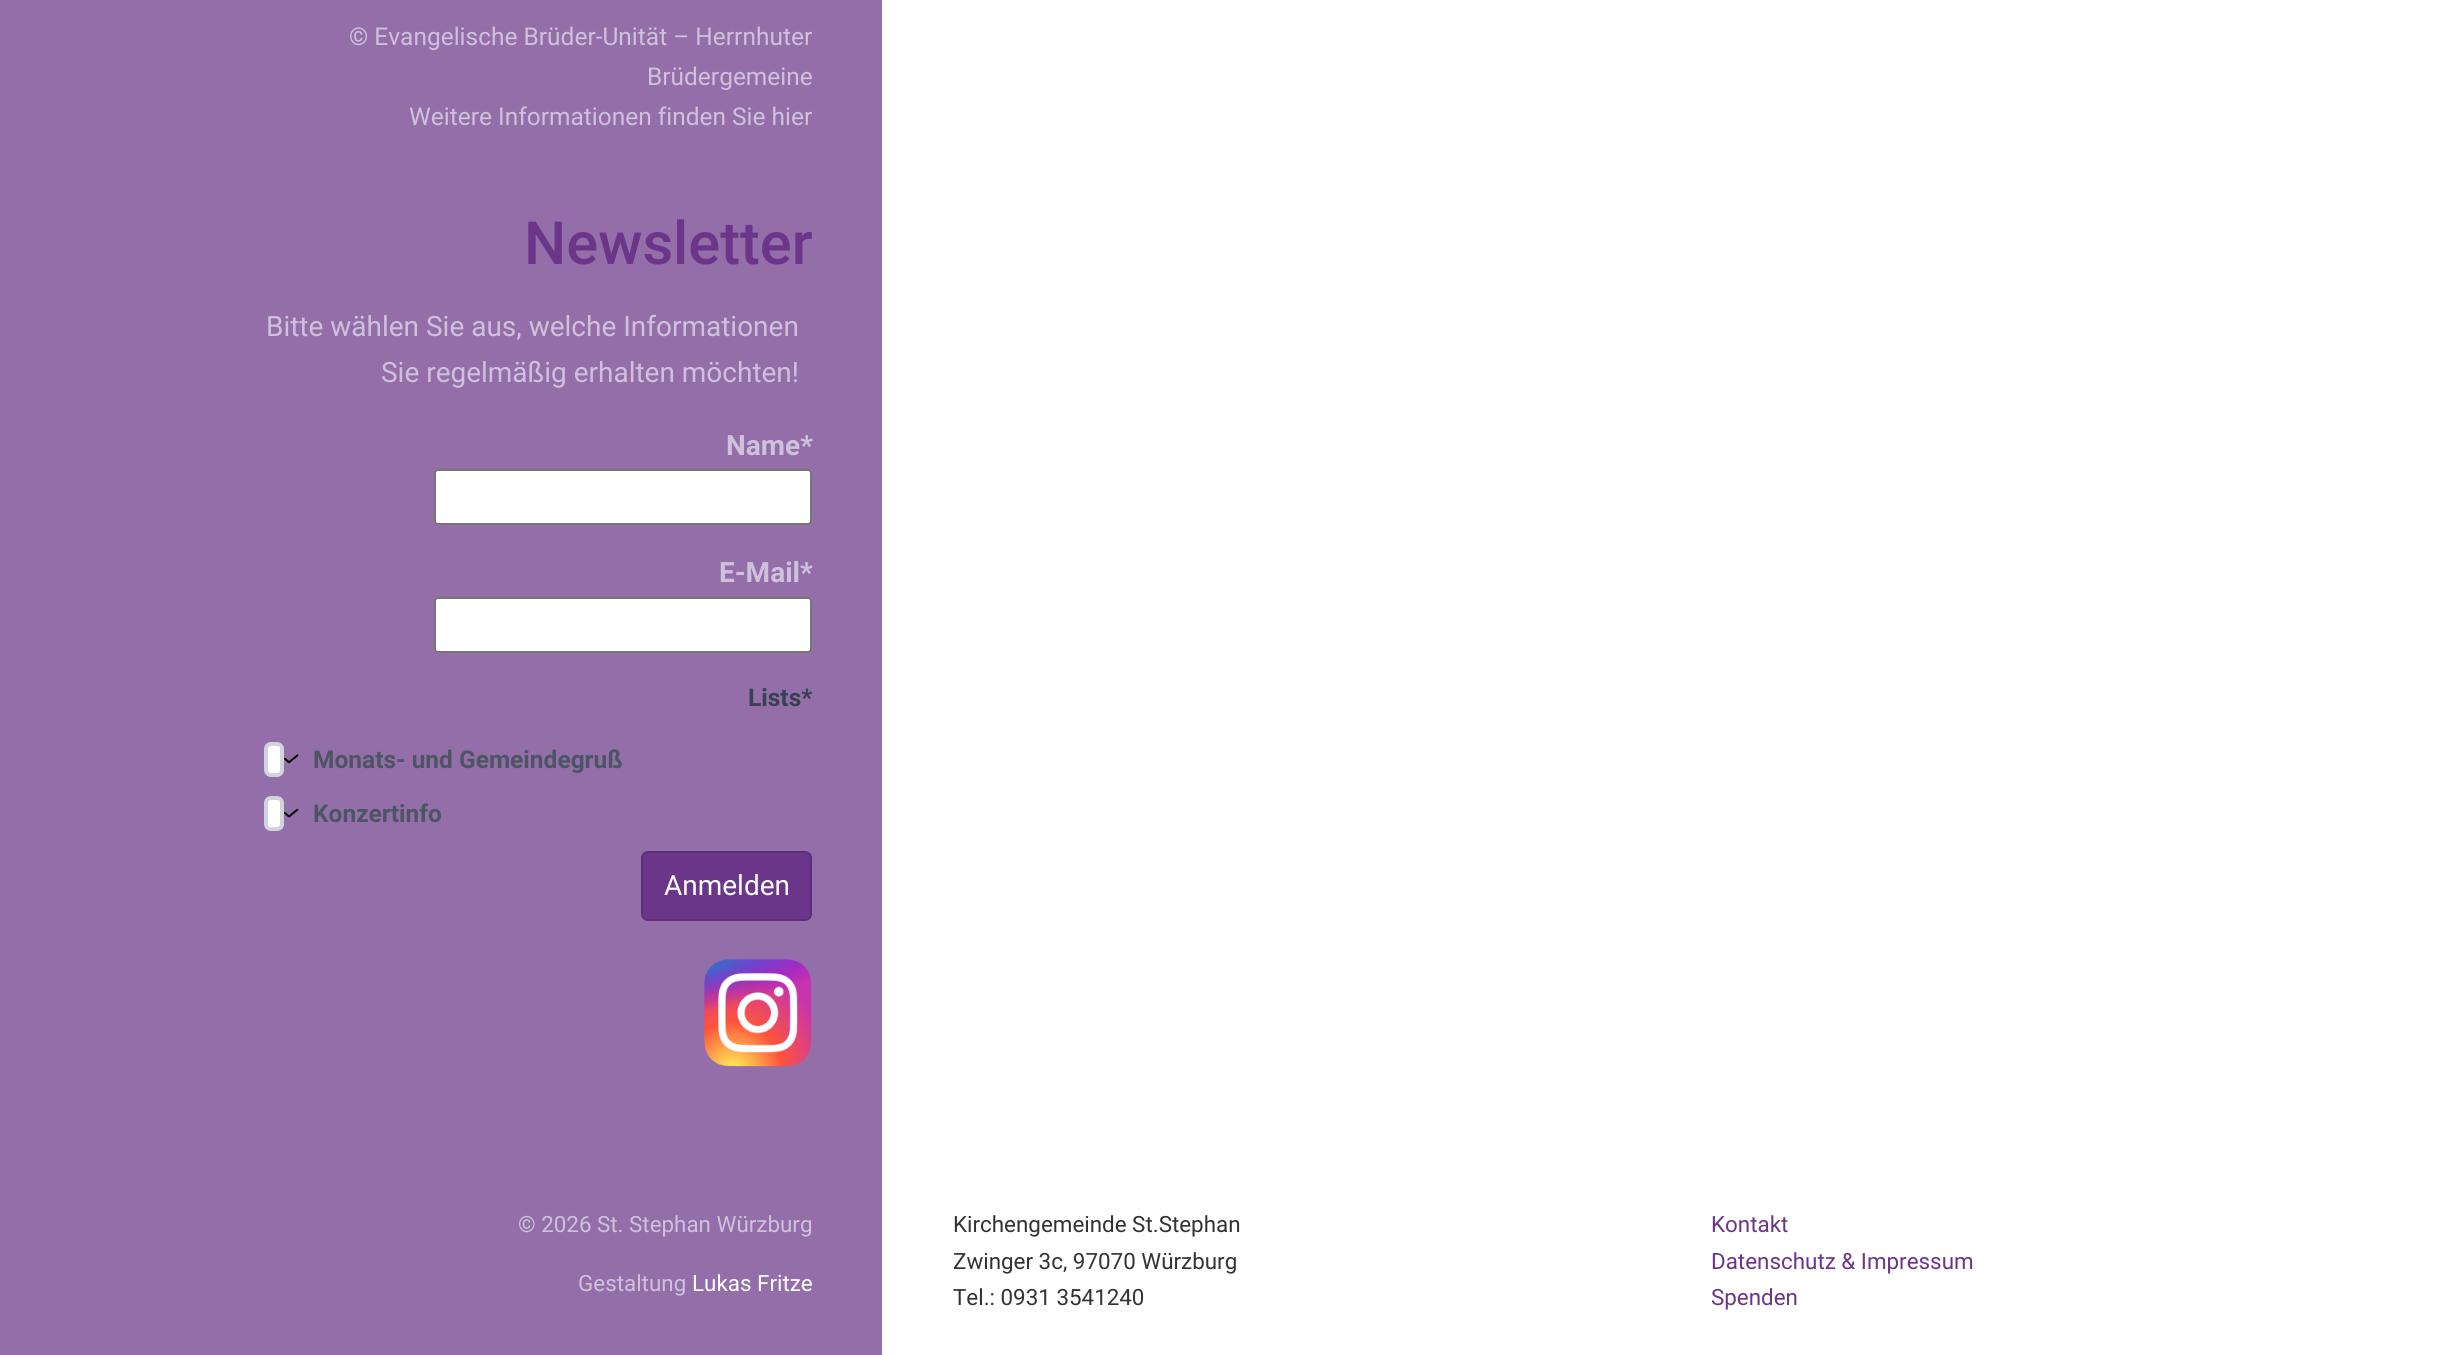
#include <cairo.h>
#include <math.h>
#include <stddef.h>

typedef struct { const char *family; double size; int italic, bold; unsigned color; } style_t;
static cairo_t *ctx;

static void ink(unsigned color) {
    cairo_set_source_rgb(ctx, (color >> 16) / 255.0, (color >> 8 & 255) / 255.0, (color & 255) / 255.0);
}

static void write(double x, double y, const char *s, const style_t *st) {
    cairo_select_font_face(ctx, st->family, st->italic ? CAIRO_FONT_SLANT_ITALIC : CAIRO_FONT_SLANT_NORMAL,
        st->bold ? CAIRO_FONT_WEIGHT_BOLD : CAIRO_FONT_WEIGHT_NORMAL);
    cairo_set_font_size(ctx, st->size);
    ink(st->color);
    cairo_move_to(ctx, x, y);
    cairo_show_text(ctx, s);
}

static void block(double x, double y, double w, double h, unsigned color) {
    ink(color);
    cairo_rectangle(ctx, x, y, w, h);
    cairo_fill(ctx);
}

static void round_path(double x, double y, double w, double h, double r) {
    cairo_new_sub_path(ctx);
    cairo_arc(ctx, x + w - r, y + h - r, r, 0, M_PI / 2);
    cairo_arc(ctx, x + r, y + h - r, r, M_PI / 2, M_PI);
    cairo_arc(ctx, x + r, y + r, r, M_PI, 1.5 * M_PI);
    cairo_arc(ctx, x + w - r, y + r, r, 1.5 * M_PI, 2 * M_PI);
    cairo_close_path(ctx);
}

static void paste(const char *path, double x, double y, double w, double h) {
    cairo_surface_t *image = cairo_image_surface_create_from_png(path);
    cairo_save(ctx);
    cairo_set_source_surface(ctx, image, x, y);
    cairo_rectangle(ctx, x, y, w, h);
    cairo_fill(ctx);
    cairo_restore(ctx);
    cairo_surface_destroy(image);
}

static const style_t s1 = {"Roboto", 24.5, 0, 0, 0xcfc1dc};
static const style_t s2 = {"Roboto Medium", 59.5, 0, 0, 0x6b3689};
static const style_t s3 = {"Roboto", 28, 0, 0, 0xcfc1dc};
static const style_t s4 = {"Roboto", 28, 0, 1, 0xcfc1dc};
static const style_t s5 = {"Roboto", 24.5, 0, 1, 0x374151};
static const style_t s6 = {"Roboto", 24.5, 0, 1, 0x4b5563};
static const style_t s7 = {"Roboto", 28, 0, 0, 0xffffff};
static const style_t s8 = {"Roboto", 22.4, 0, 0, 0xcfc1dc};
static const style_t s9 = {"Roboto", 22.4, 0, 0, 0xffffff};
static const style_t s10 = {"Roboto", 22.4, 0, 0, 0x333333};
static const style_t s11 = {"Roboto", 22.4, 0, 0, 0x6b3689};

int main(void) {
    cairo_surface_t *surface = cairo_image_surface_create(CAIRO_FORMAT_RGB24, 2452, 1355);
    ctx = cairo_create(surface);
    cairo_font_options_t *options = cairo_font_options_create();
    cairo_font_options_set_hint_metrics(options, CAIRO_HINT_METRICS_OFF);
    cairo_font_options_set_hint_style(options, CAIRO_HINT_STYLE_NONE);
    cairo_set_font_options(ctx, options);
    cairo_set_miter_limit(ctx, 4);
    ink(0xffffff);
    cairo_paint(ctx);
    block(0, 0, 882, 1355, 0x946ea9);
    write(349, 45, "© Evangelische Brüder-Unität – Herrnhuter", &s1);
    write(647, 85, "Brüdergemeine", &s1);
    write(409, 125, "Weitere Informationen finden Sie hier", &s1);
    write(524, 264, "Newsletter", &s2);
    write(266, 336, "Bitte wählen Sie aus, welche Informationen", &s3);
    write(381, 382, "Sie regelmäßig erhalten möchten!", &s3);
    write(726, 455, "Name*", &s4);
    ink(0xffffff);
    round_path(435, 470, 376, 54, 3);
    cairo_fill_preserve(ctx);
    ink(0x767676);
    cairo_stroke(ctx);
    write(719, 582, "E-Mail*", &s4);
    ink(0xffffff);
    round_path(435, 598, 376, 54, 3);
    cairo_fill_preserve(ctx);
    ink(0x767676);
    cairo_stroke(ctx);
    write(748, 706, "Lists*", &s5);
    ink(0xffffff);
    round_path(266, 744, 16, 31, 5);
    cairo_fill_preserve(ctx);
    ink(0xd1d5db);
    cairo_set_line_width(ctx, 4);
    cairo_stroke(ctx);
    paste("pic1.png", 284, 754, 15, 10);
    write(313, 768, "Monats- und Gemeindegruß", &s6);
    ink(0xffffff);
    round_path(266, 798, 16, 31, 5);
    cairo_fill_preserve(ctx);
    ink(0xd1d5db);
    cairo_stroke(ctx);
    paste("pic2.png", 284, 809, 15, 9);
    write(313, 822, "Konzertinfo", &s6);
    ink(0x6b3689);
    round_path(642, 852, 169, 68, 6);
    cairo_fill_preserve(ctx);
    ink(0x5d2f77);
    cairo_set_line_width(ctx, 2);
    cairo_stroke(ctx);
    write(664, 895, "Anmelden", &s7);
    paste("pic3.png", 704, 959, 108, 108);
    write(518, 1232, "© 2026 St. Stephan Würzburg", &s8);
    write(578, 1291, "Gestaltung", &s8);
    write(692, 1291, "Lukas Fritze", &s9);
    write(953, 1232, "Kirchengemeinde St.Stephan", &s10);
    write(953, 1269, "Zwinger 3c, 97070 Würzburg", &s10);
    write(953, 1305, "Tel.: 0931 3541240", &s10);
    write(1711, 1232, "Kontakt", &s11);
    write(1711, 1269, "Datenschutz & Impressum", &s11);
    write(1711, 1305, "Spenden", &s11);
    cairo_surface_write_to_png(surface, "screenshot.png");
    cairo_font_options_destroy(options);
    cairo_destroy(ctx);
    cairo_surface_destroy(surface);
    return 0;
}
